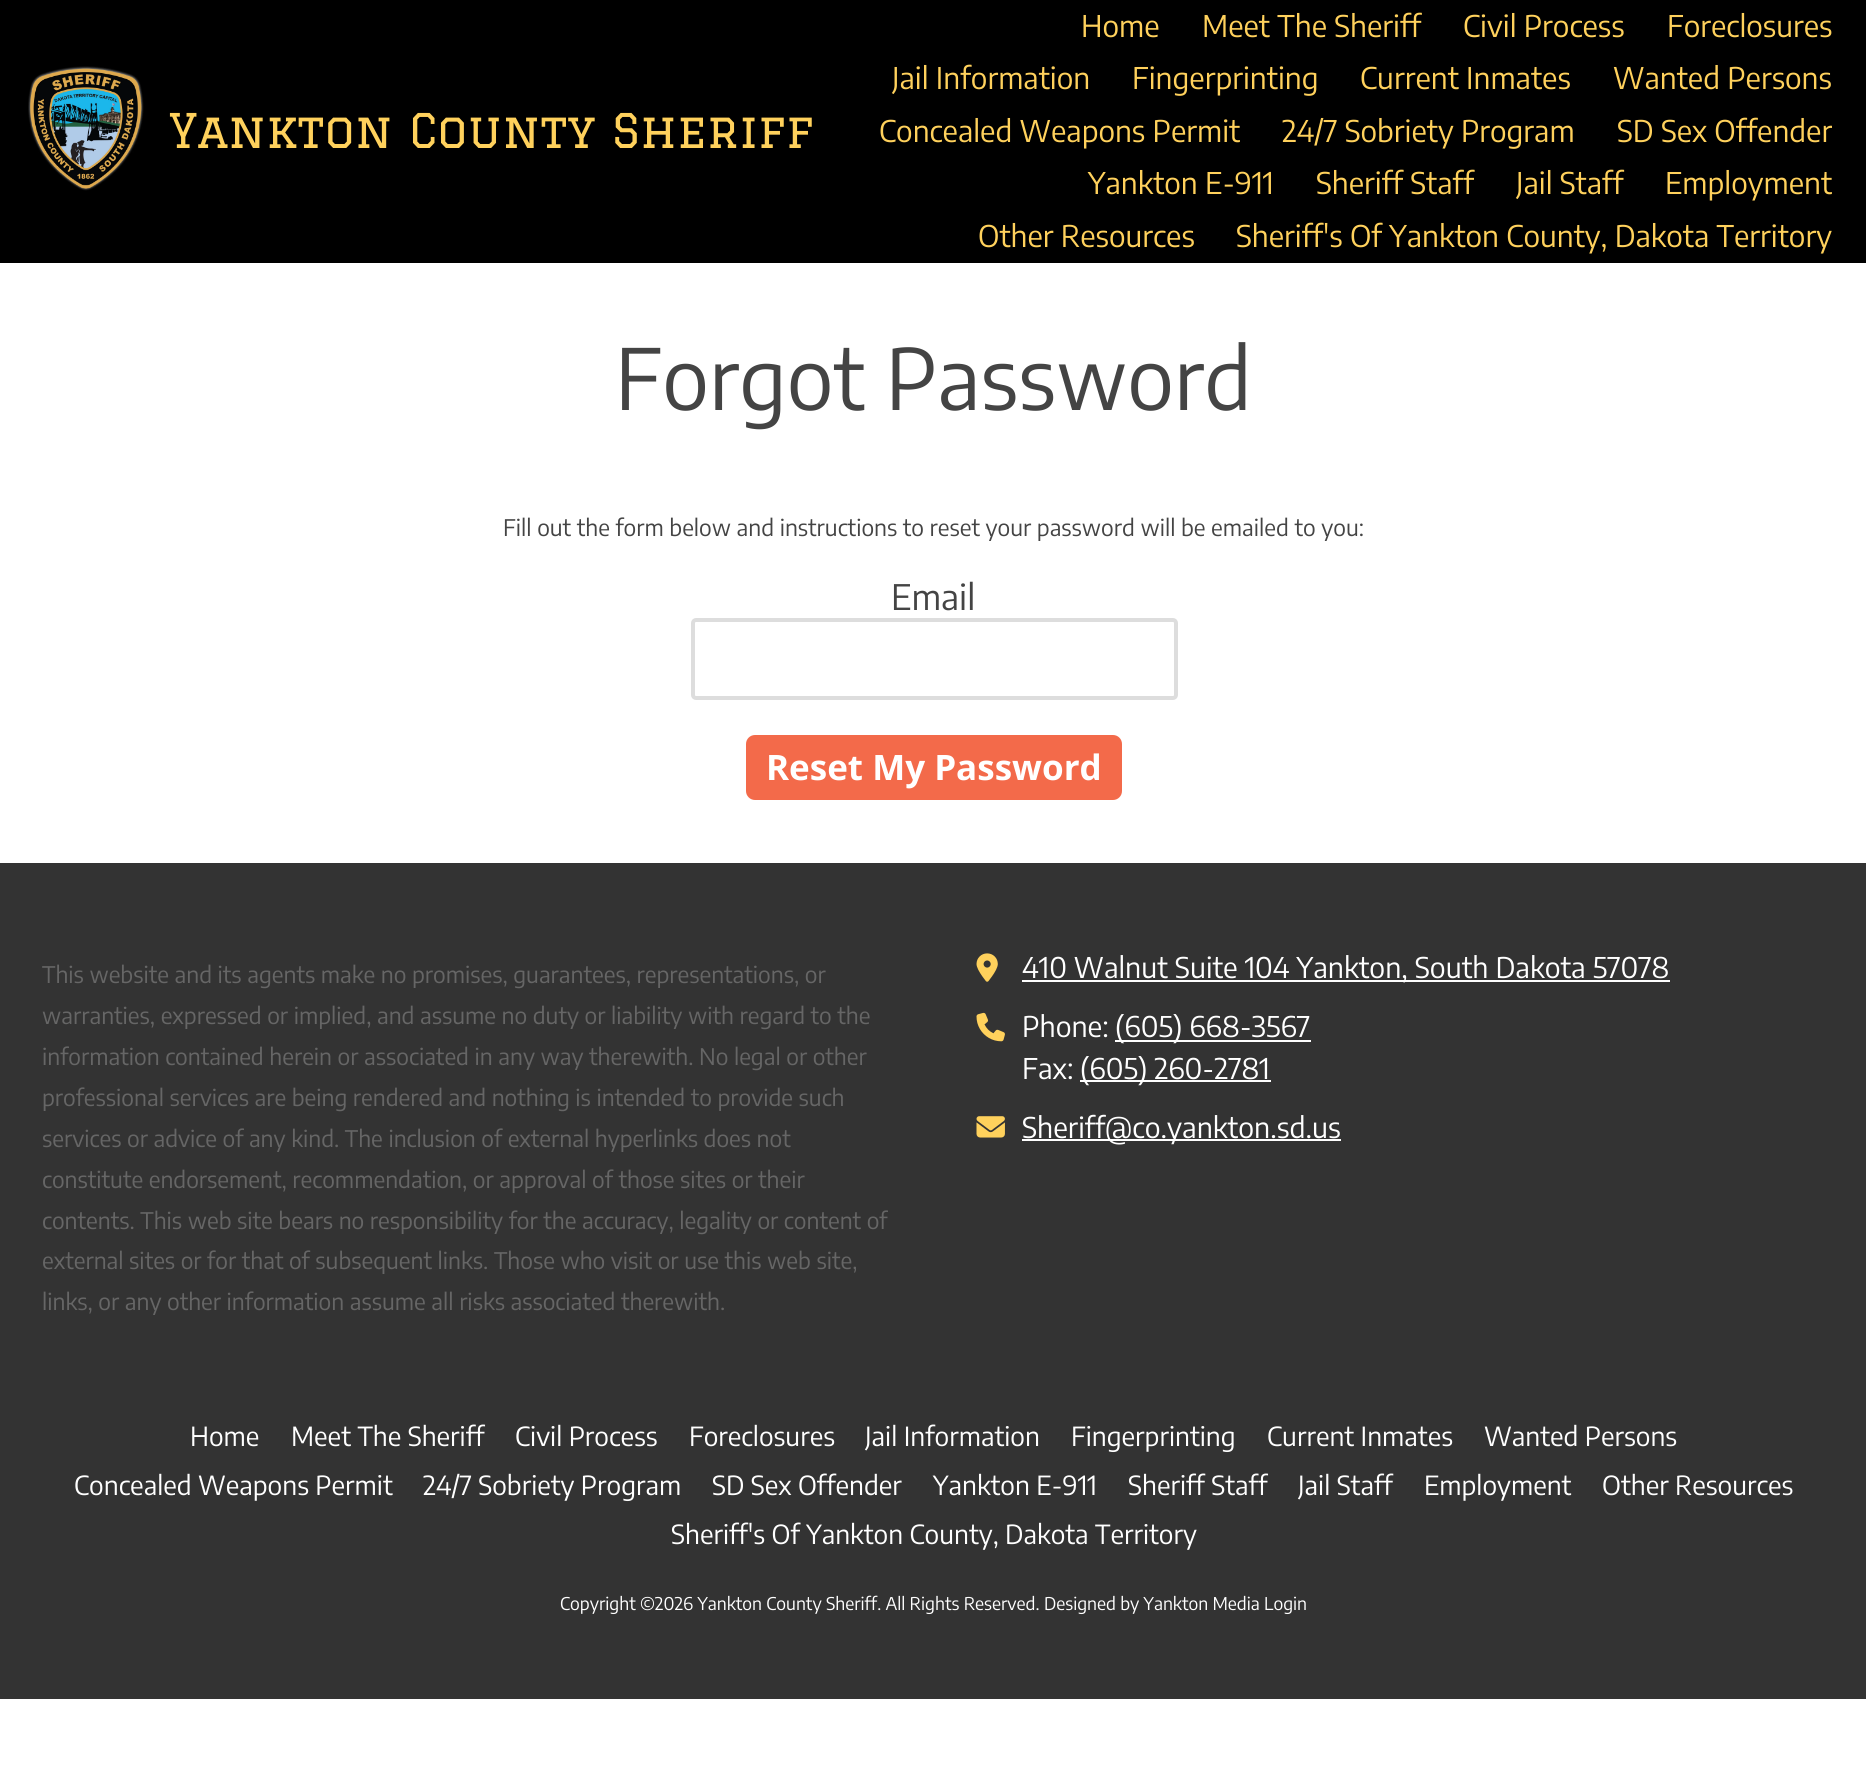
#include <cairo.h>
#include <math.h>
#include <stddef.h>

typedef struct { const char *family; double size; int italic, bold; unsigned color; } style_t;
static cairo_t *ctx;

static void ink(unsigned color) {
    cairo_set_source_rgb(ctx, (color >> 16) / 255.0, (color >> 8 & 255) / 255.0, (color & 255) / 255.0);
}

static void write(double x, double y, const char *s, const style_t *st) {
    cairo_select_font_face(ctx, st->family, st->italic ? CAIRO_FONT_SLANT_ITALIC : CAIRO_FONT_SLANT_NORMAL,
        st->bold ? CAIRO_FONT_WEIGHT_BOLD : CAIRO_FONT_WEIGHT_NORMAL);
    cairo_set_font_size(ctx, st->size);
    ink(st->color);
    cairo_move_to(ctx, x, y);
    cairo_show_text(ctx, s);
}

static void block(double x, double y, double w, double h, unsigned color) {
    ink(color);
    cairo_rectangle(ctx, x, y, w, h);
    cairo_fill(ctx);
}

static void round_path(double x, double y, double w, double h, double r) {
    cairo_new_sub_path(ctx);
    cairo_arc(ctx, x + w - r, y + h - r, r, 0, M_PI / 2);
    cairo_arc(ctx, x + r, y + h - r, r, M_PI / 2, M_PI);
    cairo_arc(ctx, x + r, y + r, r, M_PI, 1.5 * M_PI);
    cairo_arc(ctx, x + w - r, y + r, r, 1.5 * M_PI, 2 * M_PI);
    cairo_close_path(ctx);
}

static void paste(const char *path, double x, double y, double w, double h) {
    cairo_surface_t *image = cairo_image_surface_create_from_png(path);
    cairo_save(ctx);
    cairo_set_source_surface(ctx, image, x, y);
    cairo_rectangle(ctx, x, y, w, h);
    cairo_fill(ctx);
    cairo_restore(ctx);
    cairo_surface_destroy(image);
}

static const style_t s1 = {"Graduate", 46.75, 0, 0, 0xffd15c};
static const style_t s2 = {"Encode Sans Condensed", 29.75, 0, 0, 0xffd15c};
static const style_t s3 = {"Encode Sans Condensed", 84, 0, 0, 0x444444};
static const style_t s4 = {"Encode Sans Condensed", 22.75, 0, 0, 0x444444};
static const style_t s5 = {"Encode Sans Condensed", 35, 0, 0, 0x444444};
static const style_t s6 = {"Open Sans", 35, 0, 1, 0xffffff};
static const style_t s7 = {"Encode Sans Condensed", 22.75, 0, 0, 0x666666};
static const style_t s8 = {"Encode Sans Condensed", 28.4, 0, 0, 0xffffff};
static const style_t s9 = {"Encode Sans Condensed", 26.25, 0, 0, 0xffffff};
static const style_t s10 = {"Encode Sans Condensed", 17.5, 0, 0, 0xffffff};

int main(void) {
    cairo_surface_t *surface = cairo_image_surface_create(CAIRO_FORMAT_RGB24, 1866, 1782);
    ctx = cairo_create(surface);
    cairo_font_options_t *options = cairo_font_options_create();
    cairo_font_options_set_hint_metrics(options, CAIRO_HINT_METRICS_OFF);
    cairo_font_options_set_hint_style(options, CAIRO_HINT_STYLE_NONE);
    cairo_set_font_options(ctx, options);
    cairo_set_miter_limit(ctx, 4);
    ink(0xffffff);
    cairo_paint(ctx);
    block(0, 0, 1866, 263, 0x000000);
    paste("pic1.png", 28, 66, 116, 125);
    write(169, 148, "Yankton County Sheriff", &s1);
    write(1081, 37, "Home", &s2);
    write(1202, 37, "Meet The Sheriff", &s2);
    write(1463, 37, "Civil Process", &s2);
    write(1667, 37, "Foreclosures", &s2);
    write(892, 89, "Jail Information", &s2);
    write(1132, 89, "Fingerprinting", &s2);
    write(1360, 89, "Current Inmates", &s2);
    write(1613, 89, "Wanted Persons", &s2);
    write(879, 142, "Concealed Weapons Permit", &s2);
    write(1282, 142, "24/7 Sobriety Program", &s2);
    write(1617, 142, "SD Sex Offender", &s2);
    write(1088, 194, "Yankton E-911", &s2);
    write(1316, 194, "Sheriff Staff", &s2);
    write(1516, 194, "Jail Staff", &s2);
    write(1665, 194, "Employment", &s2);
    write(978, 247, "Other Resources", &s2);
    write(1236, 247, "Sheriff's Of Yankton County, Dakota Territory", &s2);
    write(615, 410, "Forgot Password", &s3);
    write(503, 536, "Fill out the form below and instructions to reset your password will be emailed to you:", &s4);
    write(891, 610, "Email", &s5);
    round_path(693, 620, 483, 78, 3);
    ink(0xdddddd);
    cairo_set_line_width(ctx, 4);
    cairo_stroke(ctx);
    ink(0xf36a4a);
    round_path(746, 735, 376, 65, 9);
    cairo_fill(ctx);
    write(766, 780, "Reset My Password", &s6);
    block(0, 863, 1866, 836, 0x333333);
    write(42, 983, "This website and its agents make no promises, guarantees, representations, or", &s7);
    write(42, 1024, "warranties, expressed or implied, and assume no duty or liability with regard to the", &s7);
    write(42, 1065, "information contained herein or associated in any way therewith. No legal or other", &s7);
    write(42, 1106, "professional services are being rendered and nothing is intended to provide such", &s7);
    write(42, 1147, "services or advice of any kind. The inclusion of external hyperlinks does not", &s7);
    write(42, 1188, "constitute endorsement, recommendation, or approval of those sites or their", &s7);
    write(42, 1229, "contents. This web site bears no responsibility for the accuracy, legality or content of", &s7);
    write(42, 1269, "external sites or for that of subsequent links. Those who visit or use this web site,", &s7);
    write(42, 1310, "links, or any other information assume all risks associated therewith.", &s7);
    paste("pic2.png", 976, 953, 22, 29);
    block(1022, 980, 648, 2, 0xffffff);
    write(1022, 978, "410 Walnut Suite 104 Yankton, South Dakota 57078", &s8);
    paste("pic3.png", 976, 1012, 29, 30);
    write(1022, 1037, "Phone:", &s8);
    block(1115, 1040, 196, 2, 0xffffff);
    write(1115, 1037, "(605) 668-3567", &s8);
    write(1022, 1079, "Fax:", &s8);
    block(1080, 1080, 191, 2, 0xffffff);
    write(1080, 1079, "(605) 260-2781", &s8);
    paste("pic4.png", 976, 1116, 29, 22);
    block(1022, 1139, 319, 2, 0xffffff);
    write(1022, 1138, "Sheriff@co.yankton.sd.us", &s8);
    write(190, 1446, "Home", &s9);
    write(291, 1446, "Meet The Sheriff", &s9);
    write(515, 1446, "Civil Process", &s9);
    write(689, 1446, "Foreclosures", &s9);
    write(865, 1446, "Jail Information", &s9);
    write(1071, 1446, "Fingerprinting", &s9);
    write(1267, 1446, "Current Inmates", &s9);
    write(1484, 1446, "Wanted Persons", &s9);
    write(74, 1495, "Concealed Weapons Permit", &s9);
    write(423, 1495, "24/7 Sobriety Program", &s9);
    write(712, 1495, "SD Sex Offender", &s9);
    write(933, 1495, "Yankton E-911", &s9);
    write(1128, 1495, "Sheriff Staff", &s9);
    write(1298, 1495, "Jail Staff", &s9);
    write(1424, 1495, "Employment", &s9);
    write(1602, 1495, "Other Resources", &s9);
    write(671, 1544, "Sheriff's Of Yankton County, Dakota Territory", &s9);
    write(560, 1610, "Copyright ©2026 Yankton County Sheriff. All Rights Reserved.", &s10);
    write(1044, 1610, "Designed by Yankton Media Login", &s10);
    cairo_surface_write_to_png(surface, "screenshot.png");
    cairo_font_options_destroy(options);
    cairo_destroy(ctx);
    cairo_surface_destroy(surface);
    return 0;
}
